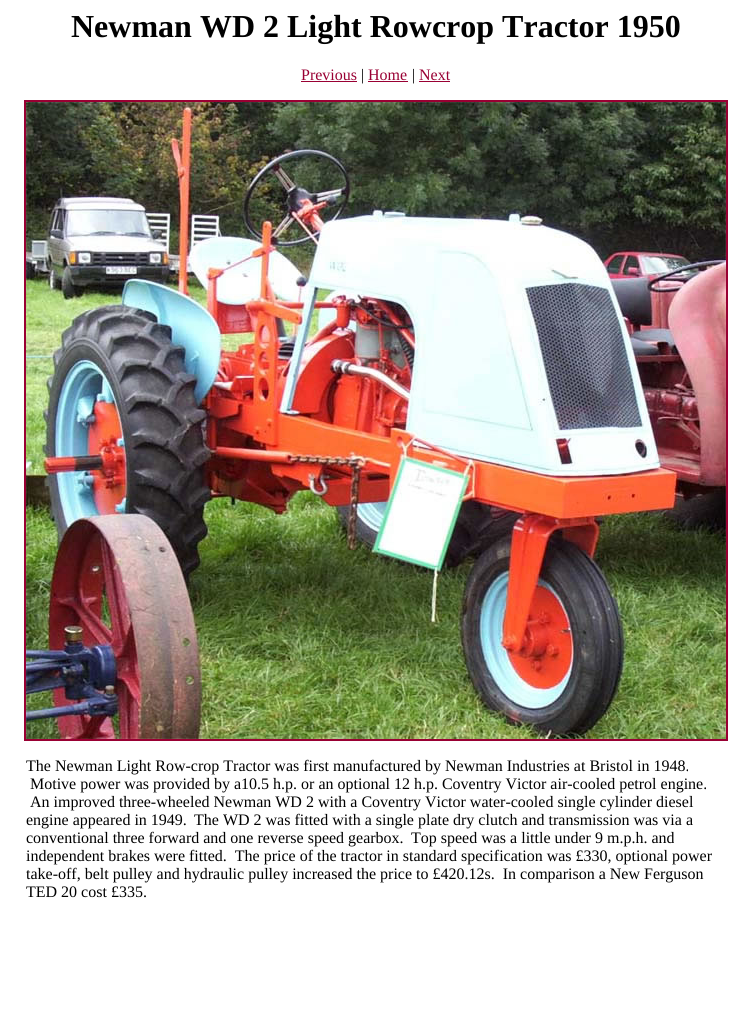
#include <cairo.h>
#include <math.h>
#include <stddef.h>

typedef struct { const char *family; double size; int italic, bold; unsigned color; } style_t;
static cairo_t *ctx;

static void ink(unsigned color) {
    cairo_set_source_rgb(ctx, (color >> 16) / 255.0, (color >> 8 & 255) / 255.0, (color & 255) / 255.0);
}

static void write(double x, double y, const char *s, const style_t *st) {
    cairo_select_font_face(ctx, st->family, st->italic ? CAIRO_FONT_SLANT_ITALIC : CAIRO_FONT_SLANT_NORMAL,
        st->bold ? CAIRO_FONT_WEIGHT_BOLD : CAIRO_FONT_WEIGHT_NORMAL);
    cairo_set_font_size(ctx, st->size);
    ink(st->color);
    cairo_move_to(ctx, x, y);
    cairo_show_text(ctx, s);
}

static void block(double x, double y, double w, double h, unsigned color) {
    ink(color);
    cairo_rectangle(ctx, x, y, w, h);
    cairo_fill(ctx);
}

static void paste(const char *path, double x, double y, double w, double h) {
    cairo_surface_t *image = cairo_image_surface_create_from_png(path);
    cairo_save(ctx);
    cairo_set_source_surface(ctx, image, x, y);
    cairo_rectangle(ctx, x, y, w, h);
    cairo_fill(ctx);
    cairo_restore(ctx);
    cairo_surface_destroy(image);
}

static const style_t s1 = {"Liberation Serif", 32, 0, 1, 0x000000};
static const style_t s2 = {"Liberation Serif", 16, 0, 0, 0x990033};
static const style_t s3 = {"Liberation Serif", 16, 0, 0, 0x000000};

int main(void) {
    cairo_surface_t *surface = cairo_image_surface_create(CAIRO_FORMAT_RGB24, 751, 1012);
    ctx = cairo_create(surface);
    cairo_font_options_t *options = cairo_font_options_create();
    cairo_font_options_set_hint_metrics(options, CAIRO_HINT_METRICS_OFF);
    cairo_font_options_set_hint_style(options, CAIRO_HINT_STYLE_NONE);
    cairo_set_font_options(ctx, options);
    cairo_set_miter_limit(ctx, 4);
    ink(0xffffff);
    cairo_paint(ctx);
    write(71, 37, "Newman WD 2 Light Rowcrop Tractor 1950", &s1);
    write(301, 80, "Previous", &s2);
    block(301, 81, 56, 1, 0x990033);
    write(361, 80, "|", &s3);
    write(368, 80, "Home", &s2);
    block(368, 81, 40, 1, 0x990033);
    write(412, 80, "|", &s3);
    write(419, 80, "Next", &s2);
    block(419, 81, 31, 1, 0x990033);
    cairo_rectangle(ctx, 25, 101, 702, 639);
    cairo_stroke(ctx);
    paste("pic1.png", 26, 102, 700, 637);
    write(26, 771, "The Newman Light Row-crop Tractor was first manufactured by Newman Industries at Bristol in 1948.", &s3);
    write(30, 789, "Motive power was provided by a10.5 h.p. or an optional 12 h.p. Coventry Victor air-cooled petrol engine.", &s3);
    write(30, 807, "An improved three-wheeled Newman WD 2 with a Coventry Victor water-cooled single cylinder diesel", &s3);
    write(26, 825, "engine appeared in 1949.", &s3);
    write(194, 825, "The WD 2 was fitted with a single plate dry clutch and transmission was via a", &s3);
    write(26, 843, "conventional three forward and one reverse speed gearbox.", &s3);
    write(411, 843, "Top speed was a little under 9 m.p.h. and", &s3);
    write(26, 861, "independent brakes were fitted.  The price of the tractor in standard specification was £330, optional power", &s3);
    write(26, 879, "take-off, belt pulley and hydraulic pulley increased the price to £420.12s.  In comparison a New Ferguson", &s3);
    write(26, 897, "TED 20 cost £335.", &s3);
    cairo_surface_write_to_png(surface, "screenshot.png");
    cairo_font_options_destroy(options);
    cairo_destroy(ctx);
    cairo_surface_destroy(surface);
    return 0;
}
